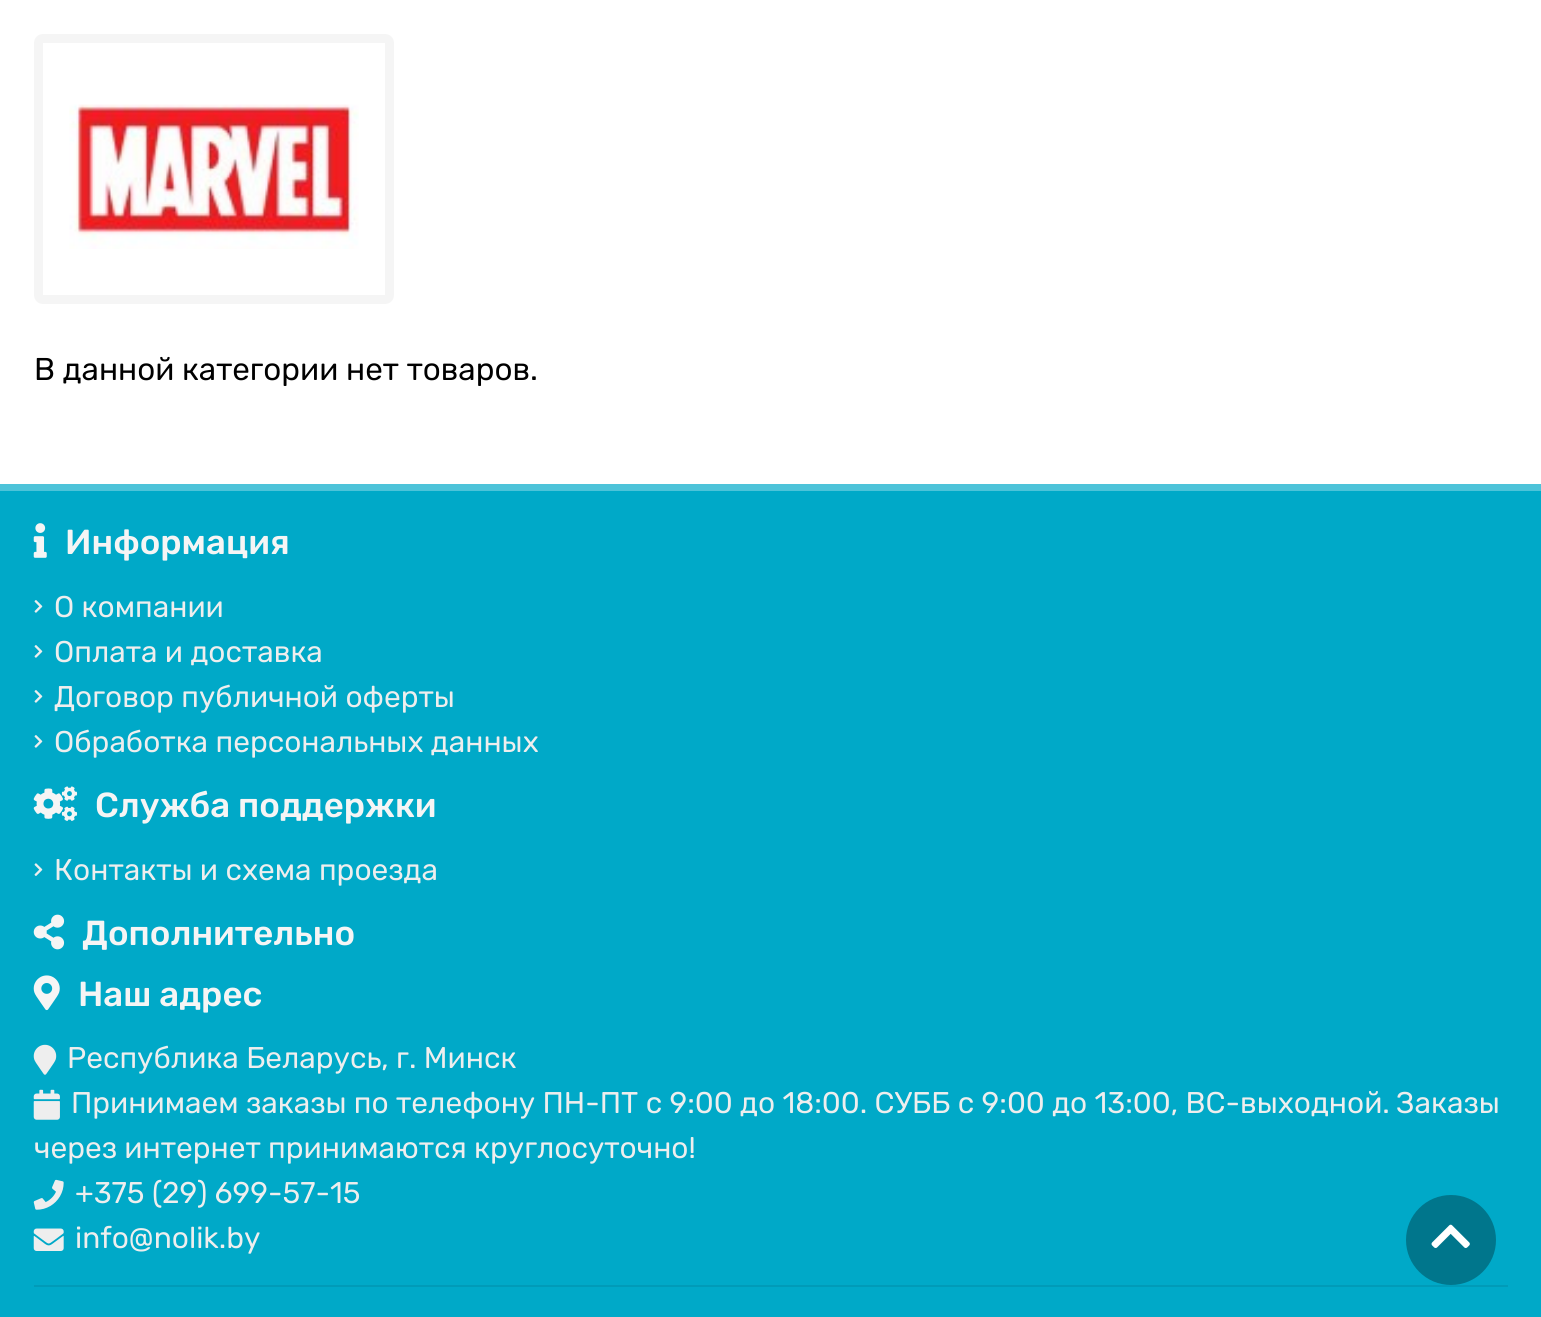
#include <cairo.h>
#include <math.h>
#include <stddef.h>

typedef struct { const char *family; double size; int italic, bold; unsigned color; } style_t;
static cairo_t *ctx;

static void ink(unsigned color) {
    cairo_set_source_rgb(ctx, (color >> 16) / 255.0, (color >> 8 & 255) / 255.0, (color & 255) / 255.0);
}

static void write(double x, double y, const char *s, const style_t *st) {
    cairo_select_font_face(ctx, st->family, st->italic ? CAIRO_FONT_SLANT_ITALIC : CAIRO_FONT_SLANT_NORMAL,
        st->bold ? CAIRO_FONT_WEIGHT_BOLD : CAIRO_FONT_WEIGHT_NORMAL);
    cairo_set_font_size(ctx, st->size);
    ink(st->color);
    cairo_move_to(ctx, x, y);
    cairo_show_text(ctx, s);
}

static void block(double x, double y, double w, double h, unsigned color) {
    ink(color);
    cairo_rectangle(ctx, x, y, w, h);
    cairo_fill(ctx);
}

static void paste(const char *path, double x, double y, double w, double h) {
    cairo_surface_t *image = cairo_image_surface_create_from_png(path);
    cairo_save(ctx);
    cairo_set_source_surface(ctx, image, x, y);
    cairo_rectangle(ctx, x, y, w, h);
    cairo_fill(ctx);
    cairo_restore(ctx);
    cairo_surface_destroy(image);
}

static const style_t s1 = {"Rubik", 31.5, 0, 0, 0x000000};
static const style_t s2 = {"Rubik Medium", 34.75, 0, 0, 0xf5f5f5};
static const style_t s3 = {"Rubik", 29.95, 0, 0, 0xeeeeee};

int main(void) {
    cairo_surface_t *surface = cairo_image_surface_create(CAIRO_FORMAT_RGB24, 1541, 1317);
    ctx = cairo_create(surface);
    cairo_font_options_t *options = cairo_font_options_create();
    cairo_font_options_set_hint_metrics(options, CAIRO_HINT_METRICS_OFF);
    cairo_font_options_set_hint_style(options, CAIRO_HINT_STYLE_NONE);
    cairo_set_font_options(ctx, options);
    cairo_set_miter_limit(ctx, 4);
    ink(0xffffff);
    cairo_paint(ctx);
    paste("pic1.png", 69, 104, 290, 145);
    ink(0xf5f5f5);
    cairo_set_fill_rule(ctx, CAIRO_FILL_RULE_EVEN_ODD);
    cairo_new_path(ctx);
    cairo_move_to(ctx, 43, 34);
    cairo_curve_to(ctx, 38, 34, 34, 38, 34, 43);
    cairo_line_to(ctx, 34, 295);
    cairo_curve_to(ctx, 34, 300, 38, 304, 43, 304);
    cairo_line_to(ctx, 385, 304);
    cairo_curve_to(ctx, 390, 304, 394, 300, 394, 295);
    cairo_line_to(ctx, 394, 43);
    cairo_curve_to(ctx, 394, 38, 390, 34, 385, 34);
    cairo_close_path(ctx);
    cairo_move_to(ctx, 43, 43);
    cairo_line_to(ctx, 43, 295);
    cairo_line_to(ctx, 385, 295);
    cairo_line_to(ctx, 385, 43);
    cairo_close_path(ctx);
    cairo_fill(ctx);
    write(34, 380, "В данной категории нет товаров.", &s1);
    block(0, 491, 1541, 826, 0x00a9c8);
    block(0, 484, 1541, 7, 0x4dc3d9);
    paste("pic2.png", 33, 523, 14, 35);
    write(65, 554, "Информация", &s2);
    paste("pic3.png", 34, 600, 9, 13);
    write(54, 617, "О компании", &s3);
    paste("pic3.png", 34, 645, 9, 13);
    write(54, 662, "Оплата и доставка", &s3);
    paste("pic3.png", 34, 690, 9, 13);
    write(54, 707, "Договор публичной оферты", &s3);
    paste("pic3.png", 34, 735, 9, 13);
    write(54, 752, "Обработка персональных данных", &s3);
    paste("pic4.png", 33, 786, 45, 35);
    write(95, 817, "Служба поддержки", &s2);
    paste("pic5.png", 34, 863, 9, 13);
    write(54, 880, "Контакты и схема проезда", &s3);
    paste("pic6.png", 33, 914, 32, 36);
    write(82, 945, "Дополнительно", &s2);
    paste("pic7.png", 33, 975, 27, 36);
    write(78, 1006, "Наш адрес", &s2);
    paste("pic8.png", 33, 1044, 24, 31);
    write(67, 1068, "Республика Беларусь, г. Минск", &s3);
    paste("pic9.png", 33, 1089, 27, 31);
    write(71, 1113, "Принимаем заказы по телефону ПН-ПТ с 9:00 до 18:00. СУББ с 9:00 до 13:00, ВС-выходной.", &s3);
    write(1396, 1113, "Заказы", &s3);
    write(34, 1158, "через интернет принимаются круглосуточно!", &s3);
    paste("pic10.png", 33, 1179, 31, 31);
    write(75, 1203, "+375 (29) 699-57-15", &s3);
    paste("pic11.png", 33, 1228, 31, 23);
    write(75, 1248, "info@nolik.by", &s3);
    block(34, 1285, 1474, 2, 0x009bb8);
    ink(0x00768c);
    cairo_new_path(ctx);
    cairo_arc(ctx, 1451, 1240, 45, 0, 2 * M_PI);
    cairo_fill(ctx);
    paste("pic12.png", 1431, 1224, 39, 24);
    cairo_surface_write_to_png(surface, "screenshot.png");
    cairo_font_options_destroy(options);
    cairo_destroy(ctx);
    cairo_surface_destroy(surface);
    return 0;
}
